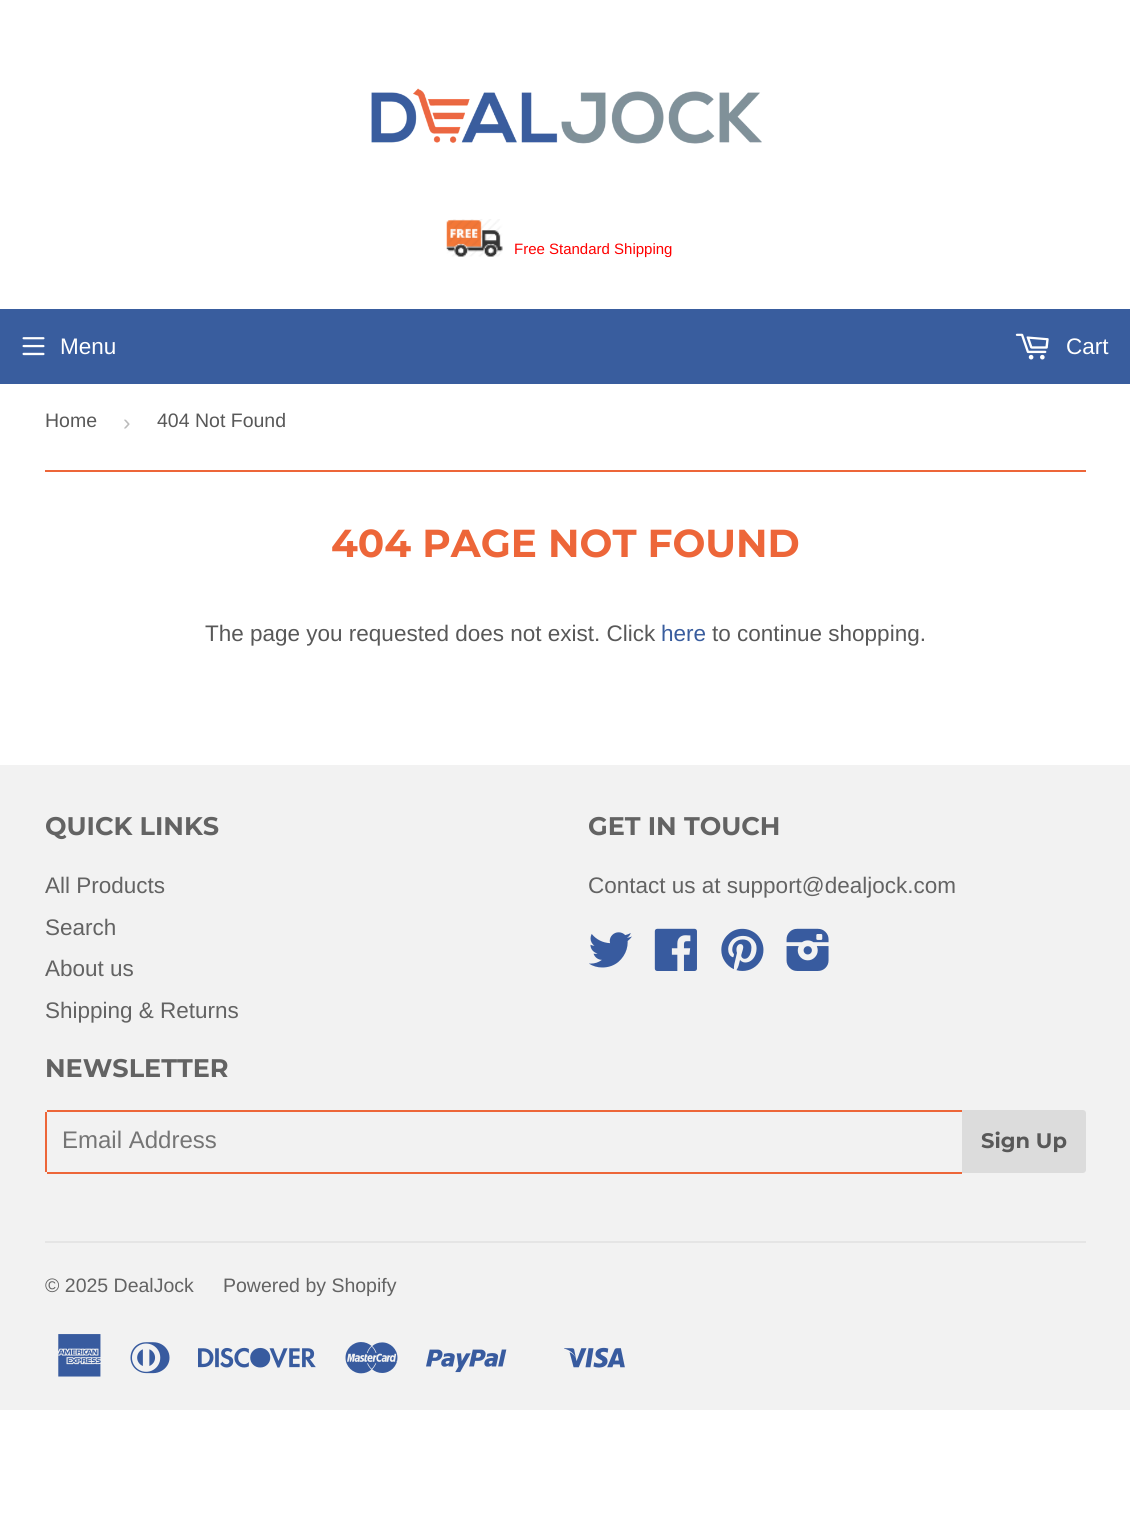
#include <cairo.h>
#include <math.h>
#include <stddef.h>

typedef struct { const char *family; double size; int italic, bold; unsigned color; } style_t;
static cairo_t *ctx;

static void ink(unsigned color) {
    cairo_set_source_rgb(ctx, (color >> 16) / 255.0, (color >> 8 & 255) / 255.0, (color & 255) / 255.0);
}

static void write(double x, double y, const char *s, const style_t *st) {
    cairo_select_font_face(ctx, st->family, st->italic ? CAIRO_FONT_SLANT_ITALIC : CAIRO_FONT_SLANT_NORMAL,
        st->bold ? CAIRO_FONT_WEIGHT_BOLD : CAIRO_FONT_WEIGHT_NORMAL);
    cairo_set_font_size(ctx, st->size);
    ink(st->color);
    cairo_move_to(ctx, x, y);
    cairo_show_text(ctx, s);
}

static void block(double x, double y, double w, double h, unsigned color) {
    ink(color);
    cairo_rectangle(ctx, x, y, w, h);
    cairo_fill(ctx);
}

static void paste(const char *path, double x, double y, double w, double h) {
    cairo_surface_t *image = cairo_image_surface_create_from_png(path);
    cairo_save(ctx);
    cairo_set_source_surface(ctx, image, x, y);
    cairo_rectangle(ctx, x, y, w, h);
    cairo_fill(ctx);
    cairo_restore(ctx);
    cairo_surface_destroy(image);
}

static const style_t s1 = {"Liberation Sans", 15, 0, 0, 0xff0000};
static const style_t s2 = {"Liberation Sans", 22.5, 0, 0, 0xffffff};
static const style_t s3 = {"Liberation Sans", 19.5, 0, 0, 0x585858};
static const style_t s4 = {"Liberation Sans", 22.5, 0, 0, 0xbbbbbb};
static const style_t s5 = {"Montserrat Thin", 39, 0, 0, 0xed6639};
static const style_t s6 = {"Liberation Sans", 22.5, 0, 0, 0x585858};
static const style_t s7 = {"Liberation Sans", 22.5, 0, 0, 0x395d9e};
static const style_t s8 = {"Montserrat Thin", 25.5, 0, 0, 0x636363};
static const style_t s9 = {"Liberation Sans", 22.5, 0, 0, 0x636363};
static const style_t s10 = {"Liberation Sans", 24, 0, 0, 0x757575};
static const style_t s11 = {"Montserrat Thin", 21, 0, 0, 0x585858};
static const style_t s12 = {"Liberation Sans", 19.5, 0, 0, 0x636363};

int main(void) {
    cairo_surface_t *surface = cairo_image_surface_create(CAIRO_FORMAT_RGB24, 1130, 1540);
    ctx = cairo_create(surface);
    cairo_font_options_t *options = cairo_font_options_create();
    cairo_font_options_set_hint_metrics(options, CAIRO_HINT_METRICS_OFF);
    cairo_font_options_set_hint_style(options, CAIRO_HINT_STYLE_NONE);
    cairo_set_font_options(ctx, options);
    cairo_set_miter_limit(ctx, 4);
    ink(0xffffff);
    cairo_paint(ctx);
    paste("pic1.png", 371, 88, 391, 56);
    paste("pic2.png", 446, 219, 57, 38);
    write(514, 254, "Free Standard Shipping", &s1);
    block(0, 309, 1130, 75, 0x395d9e);
    paste("pic3.png", 22, 337, 23, 19);
    write(60, 354, "Menu", &s2);
    paste("pic4.png", 1015, 333, 34, 27);
    write(1066, 354, "Cart", &s2);
    block(45, 470, 1041, 2, 0xed6639);
    write(45, 427, "Home", &s3);
    write(123, 430, "›", &s4);
    write(157, 427, "404 Not Found", &s3);
    write(331, 557, "404 PAGE NOT FOUND", &s5);
    write(205, 641, "The page you requested does not exist. Click", &s6);
    write(661, 641, "here", &s7);
    write(712, 641, "to continue shopping.", &s6);
    block(0, 765, 1130, 645, 0xf2f2f2);
    write(45, 835, "QUICK LINKS", &s8);
    write(45, 893, "All Products", &s9);
    write(45, 935, "Search", &s9);
    write(45, 976, "About us", &s9);
    write(45, 1018, "Shipping & Returns", &s9);
    write(588, 835, "GET IN TOUCH", &s8);
    write(588, 893, "Contact us at support@dealjock.com", &s9);
    paste("pic5.png", 589, 932, 43, 36);
    paste("pic6.png", 654, 928, 43, 43);
    paste("pic7.png", 721, 928, 43, 43);
    paste("pic8.png", 786, 928, 43, 43);
    write(45, 1077, "NEWSLETTER", &s8);
    block(47, 1110, 915, 2, 0xed6639);
    block(47, 1172, 915, 2, 0xed6639);
    block(45, 1112, 2, 60, 0xed6639);
    write(62, 1148, "Email Address", &s10);
    ink(0xdcdcdc);
    cairo_new_path(ctx);
    cairo_move_to(ctx, 962, 1110);
    cairo_line_to(ctx, 1083, 1110);
    cairo_curve_to(ctx, 1084.5, 1110, 1086, 1111.5, 1086, 1113);
    cairo_line_to(ctx, 1086, 1170);
    cairo_curve_to(ctx, 1086, 1171.5, 1084.5, 1173, 1083, 1173);
    cairo_line_to(ctx, 962, 1173);
    cairo_close_path(ctx);
    cairo_fill(ctx);
    write(981, 1148, "Sign Up", &s11);
    block(45, 1241, 1041, 2, 0xe5e5e5);
    write(45, 1292, "© 2025 DealJock", &s12);
    write(223, 1292, "Powered by Shopify", &s12);
    paste("pic9.png", 58, 1334, 43, 43);
    paste("pic10.png", 130, 1342, 40, 32);
    paste("pic11.png", 198, 1347, 118, 21);
    paste("pic12.png", 345, 1342, 53, 32);
    paste("pic13.png", 426, 1349, 81, 24);
    paste("pic14.png", 564, 1347, 61, 21);
    cairo_surface_write_to_png(surface, "screenshot.png");
    cairo_font_options_destroy(options);
    cairo_destroy(ctx);
    cairo_surface_destroy(surface);
    return 0;
}
